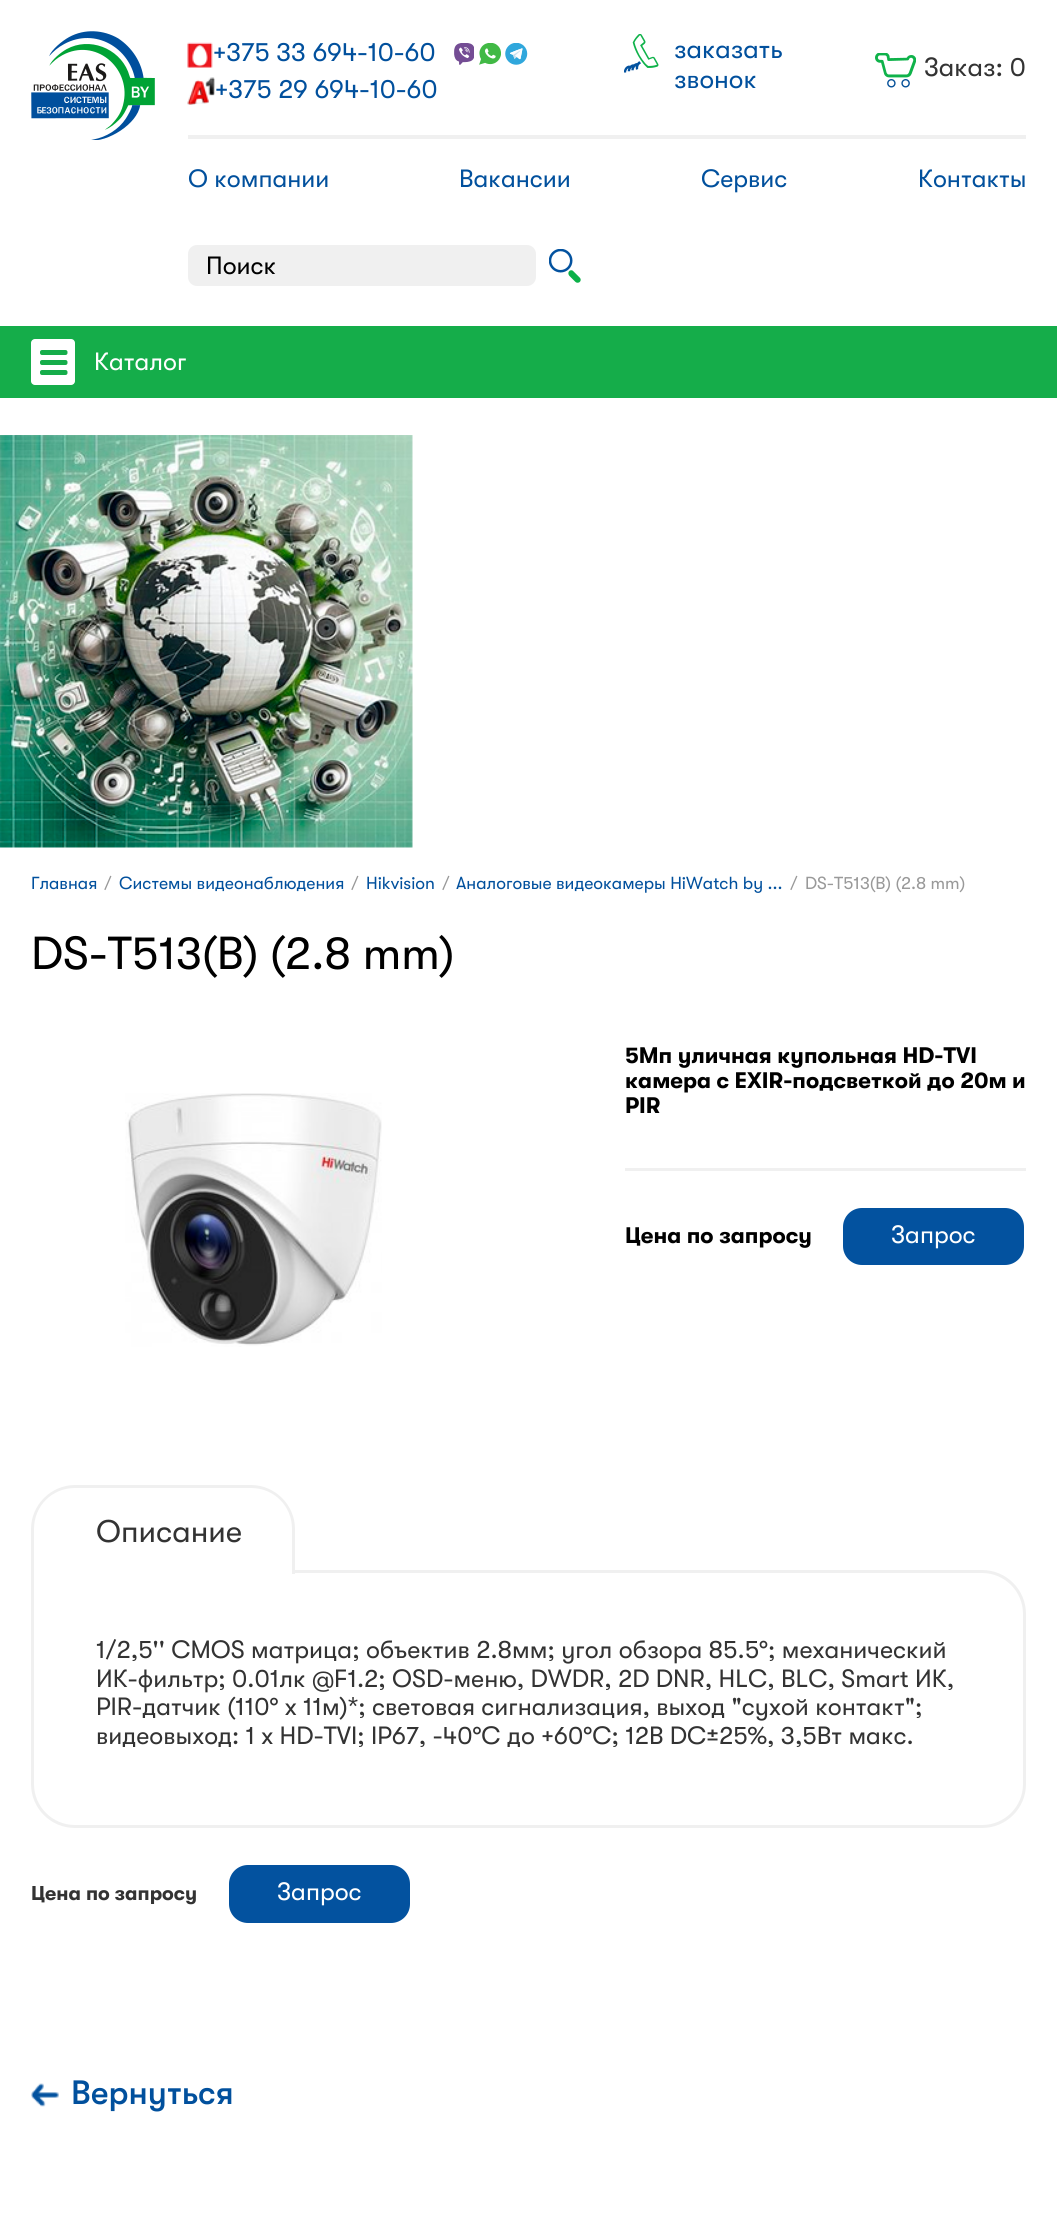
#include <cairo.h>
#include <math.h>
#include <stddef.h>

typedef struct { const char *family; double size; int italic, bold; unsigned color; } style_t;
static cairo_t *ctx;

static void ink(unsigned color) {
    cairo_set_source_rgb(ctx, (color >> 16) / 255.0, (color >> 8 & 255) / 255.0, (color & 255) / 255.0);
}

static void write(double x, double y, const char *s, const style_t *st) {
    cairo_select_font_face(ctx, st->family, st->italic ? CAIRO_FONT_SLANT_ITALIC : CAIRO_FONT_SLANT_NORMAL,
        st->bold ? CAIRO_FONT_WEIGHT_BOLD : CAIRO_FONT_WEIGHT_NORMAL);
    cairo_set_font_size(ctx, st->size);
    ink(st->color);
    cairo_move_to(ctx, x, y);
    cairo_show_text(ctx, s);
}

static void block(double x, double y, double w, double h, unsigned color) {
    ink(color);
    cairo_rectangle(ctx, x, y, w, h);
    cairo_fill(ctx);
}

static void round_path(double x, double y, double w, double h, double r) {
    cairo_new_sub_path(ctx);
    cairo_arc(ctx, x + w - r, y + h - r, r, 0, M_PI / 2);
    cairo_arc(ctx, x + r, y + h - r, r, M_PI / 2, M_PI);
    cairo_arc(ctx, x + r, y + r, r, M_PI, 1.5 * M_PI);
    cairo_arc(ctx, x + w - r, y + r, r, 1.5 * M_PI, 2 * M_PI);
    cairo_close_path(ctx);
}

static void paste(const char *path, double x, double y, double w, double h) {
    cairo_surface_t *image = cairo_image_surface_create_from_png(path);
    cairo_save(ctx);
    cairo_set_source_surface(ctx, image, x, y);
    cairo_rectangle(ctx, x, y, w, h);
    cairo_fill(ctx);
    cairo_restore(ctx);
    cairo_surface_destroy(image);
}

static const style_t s1 = {"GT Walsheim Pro", 26.25, 0, 0, 0x01509d};
static const style_t s2 = {"GT Walsheim Pro", 26.25, 0, 0, 0x333333};
static const style_t s3 = {"GT Walsheim Pro", 25, 0, 0, 0x01509d};
static const style_t s4 = {"GT Walsheim Pro", 25, 0, 0, 0x000000};
static const style_t s5 = {"GT Walsheim Pro", 25, 0, 0, 0xffffff};
static const style_t s6 = {"GT Walsheim Pro", 17.5, 0, 0, 0x01509d};
static const style_t s7 = {"GT Walsheim Pro", 17.5, 0, 0, 0x999999};
static const style_t s8 = {"GT Walsheim Pro", 46.25, 0, 0, 0x000000};
static const style_t s9 = {"GT Walsheim Pro", 22.5, 0, 1, 0x000000};
static const style_t s10 = {"GT Walsheim Pro", 31.25, 0, 0, 0x333333};
static const style_t s11 = {"GT Walsheim Pro", 25, 0, 0, 0x333333};
static const style_t s12 = {"GT Walsheim Pro", 20, 0, 1, 0x333333};
static const style_t s13 = {"GT Walsheim Pro Medium", 33.75, 0, 0, 0x01509d};

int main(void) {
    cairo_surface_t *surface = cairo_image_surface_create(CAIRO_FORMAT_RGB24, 1057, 2218);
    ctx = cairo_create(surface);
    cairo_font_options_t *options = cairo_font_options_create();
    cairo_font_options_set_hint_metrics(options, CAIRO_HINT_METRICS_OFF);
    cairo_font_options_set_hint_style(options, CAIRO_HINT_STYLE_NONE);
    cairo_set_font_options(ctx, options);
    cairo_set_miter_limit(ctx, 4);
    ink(0xffffff);
    cairo_paint(ctx);
    paste("pic1.png", 31, 31, 124, 109);
    paste("pic2.png", 187, 42, 26, 26);
    write(213, 61, "+375 33 694-10-60", &s1);
    paste("pic3.png", 454, 43, 20, 22);
    paste("pic4.png", 479, 43, 22, 22);
    paste("pic5.png", 505, 43, 23, 22);
    paste("pic6.png", 187, 77, 28, 28);
    write(215, 98, "+375 29 694-10-60", &s1);
    paste("pic7.png", 624, 34, 35, 39);
    write(674, 58, "заказать", &s1);
    write(674, 88, "звонок", &s1);
    paste("pic8.png", 875, 53, 41, 35);
    write(924, 76, "Заказ: 0", &s2);
    block(188, 135, 838, 4, 0xf0f0f0);
    write(188, 187, "О компании", &s3);
    write(459, 187, "Вакансии", &s3);
    write(701, 187, "Сервис", &s3);
    write(918, 187, "Контакты", &s3);
    ink(0xf0f0f0);
    round_path(188, 245, 348, 41, 9);
    cairo_fill(ctx);
    write(206, 274, "Поиск", &s4);
    paste("pic9.png", 549, 249, 32, 34);
    block(0, 326, 1057, 72, 0x15ad4a);
    ink(0xffffff);
    round_path(31, 339, 44, 46, 4);
    cairo_fill(ctx);
    paste("pic10.png", 40, 350, 28, 25);
    write(94, 370, "Каталог", &s5);
    paste("pic11.png", 0, 435, 413, 413);
    write(31, 889, "Главная", &s6);
    write(104, 889, "/", &s7);
    write(119, 889, "Системы видеонаблюдения", &s6);
    write(351, 889, "/", &s7);
    write(366, 889, "Hikvision", &s6);
    write(442, 889, "/", &s7);
    write(456, 889, "Аналоговые видеокамеры HiWatch by ...", &s6);
    write(790, 889, "/", &s7);
    write(805, 889, "DS-T513(B) (2.8 mm)", &s7);
    write(31, 969, "DS-T513(B) (2.8 mm)", &s8);
    paste("pic12.png", 125, 1093, 257, 254);
    block(625, 1168, 401, 3, 0xf0f0f0);
    write(625, 1063, "5Мп уличная купольная HD-TVI", &s9);
    write(625, 1088, "камера с EXIR-подсветкой до 20м и", &s9);
    write(625, 1113, "PIR", &s9);
    write(625, 1243, "Цена по запросу", &s9);
    ink(0x03529f);
    round_path(843, 1208, 181, 57, 19);
    cairo_fill(ctx);
    write(891, 1243, "Запрос", &s5);
    cairo_new_path(ctx);
    cairo_move_to(ctx, 32.5, 1571.5);
    cairo_line_to(ctx, 982, 1571.5);
    cairo_curve_to(ctx, 1005.5, 1571.5, 1024.5, 1590.5, 1024.5, 1614);
    cairo_line_to(ctx, 1024.5, 1784);
    cairo_curve_to(ctx, 1024.5, 1807.5, 1005.5, 1826.5, 982, 1826.5);
    cairo_line_to(ctx, 75, 1826.5);
    cairo_curve_to(ctx, 51.5, 1826.5, 32.5, 1807.5, 32.5, 1784);
    cairo_close_path(ctx);
    ink(0xf0f0f0);
    cairo_set_line_width(ctx, 3);
    cairo_stroke(ctx);
    ink(0xffffff);
    cairo_new_path(ctx);
    cairo_move_to(ctx, 75, 1488);
    cairo_line_to(ctx, 252, 1488);
    cairo_curve_to(ctx, 274.5, 1488, 293, 1506.5, 293, 1529);
    cairo_line_to(ctx, 293, 1574);
    cairo_line_to(ctx, 34, 1574);
    cairo_line_to(ctx, 34, 1529);
    cairo_curve_to(ctx, 34, 1506.5, 52.5, 1488, 75, 1488);
    cairo_close_path(ctx);
    cairo_fill(ctx);
    ink(0xf0f0f0);
    cairo_set_fill_rule(ctx, CAIRO_FILL_RULE_EVEN_ODD);
    cairo_new_path(ctx);
    cairo_move_to(ctx, 75, 1485);
    cairo_line_to(ctx, 251, 1485);
    cairo_curve_to(ctx, 275, 1485, 295, 1505, 295, 1529);
    cairo_line_to(ctx, 295, 1574);
    cairo_line_to(ctx, 31, 1574);
    cairo_line_to(ctx, 31, 1529);
    cairo_curve_to(ctx, 31, 1505, 51, 1485, 75, 1485);
    cairo_close_path(ctx);
    cairo_move_to(ctx, 75, 1488);
    cairo_line_to(ctx, 251, 1488);
    cairo_curve_to(ctx, 274, 1488, 292, 1506, 292, 1529);
    cairo_line_to(ctx, 292, 1574);
    cairo_line_to(ctx, 34, 1574);
    cairo_line_to(ctx, 34, 1529);
    cairo_curve_to(ctx, 34, 1506, 52, 1488, 75, 1488);
    cairo_close_path(ctx);
    cairo_fill(ctx);
    write(96, 1542, "Описание", &s10);
    write(96, 1658, "1/2,5'' CMOS матрица; объектив 2.8мм; угол обзора 85.5°; механический", &s11);
    write(96, 1687, "ИК-фильтр; 0.01лк @F1.2; OSD-меню, DWDR, 2D DNR, HLC, BLC, Smart ИК,", &s11);
    write(96, 1715, "PIR-датчик (110° x 11м)*; световая сигнализация, выход \"сухой контакт\";", &s11);
    write(96, 1744, "видеовыход: 1 х HD-TVI; IP67, -40°С до +60°С; 12В DC±25%, 3,5Вт макс.", &s11);
    write(31, 1900, "Цена по запросу", &s12);
    ink(0x03529f);
    round_path(229, 1865, 181, 58, 19);
    cairo_fill(ctx);
    write(277, 1900, "Запрос", &s5);
    paste("pic13.png", 31, 2083, 28, 24);
    write(71, 2104, "Вернуться", &s13);
    cairo_surface_write_to_png(surface, "screenshot.png");
    cairo_font_options_destroy(options);
    cairo_destroy(ctx);
    cairo_surface_destroy(surface);
    return 0;
}
